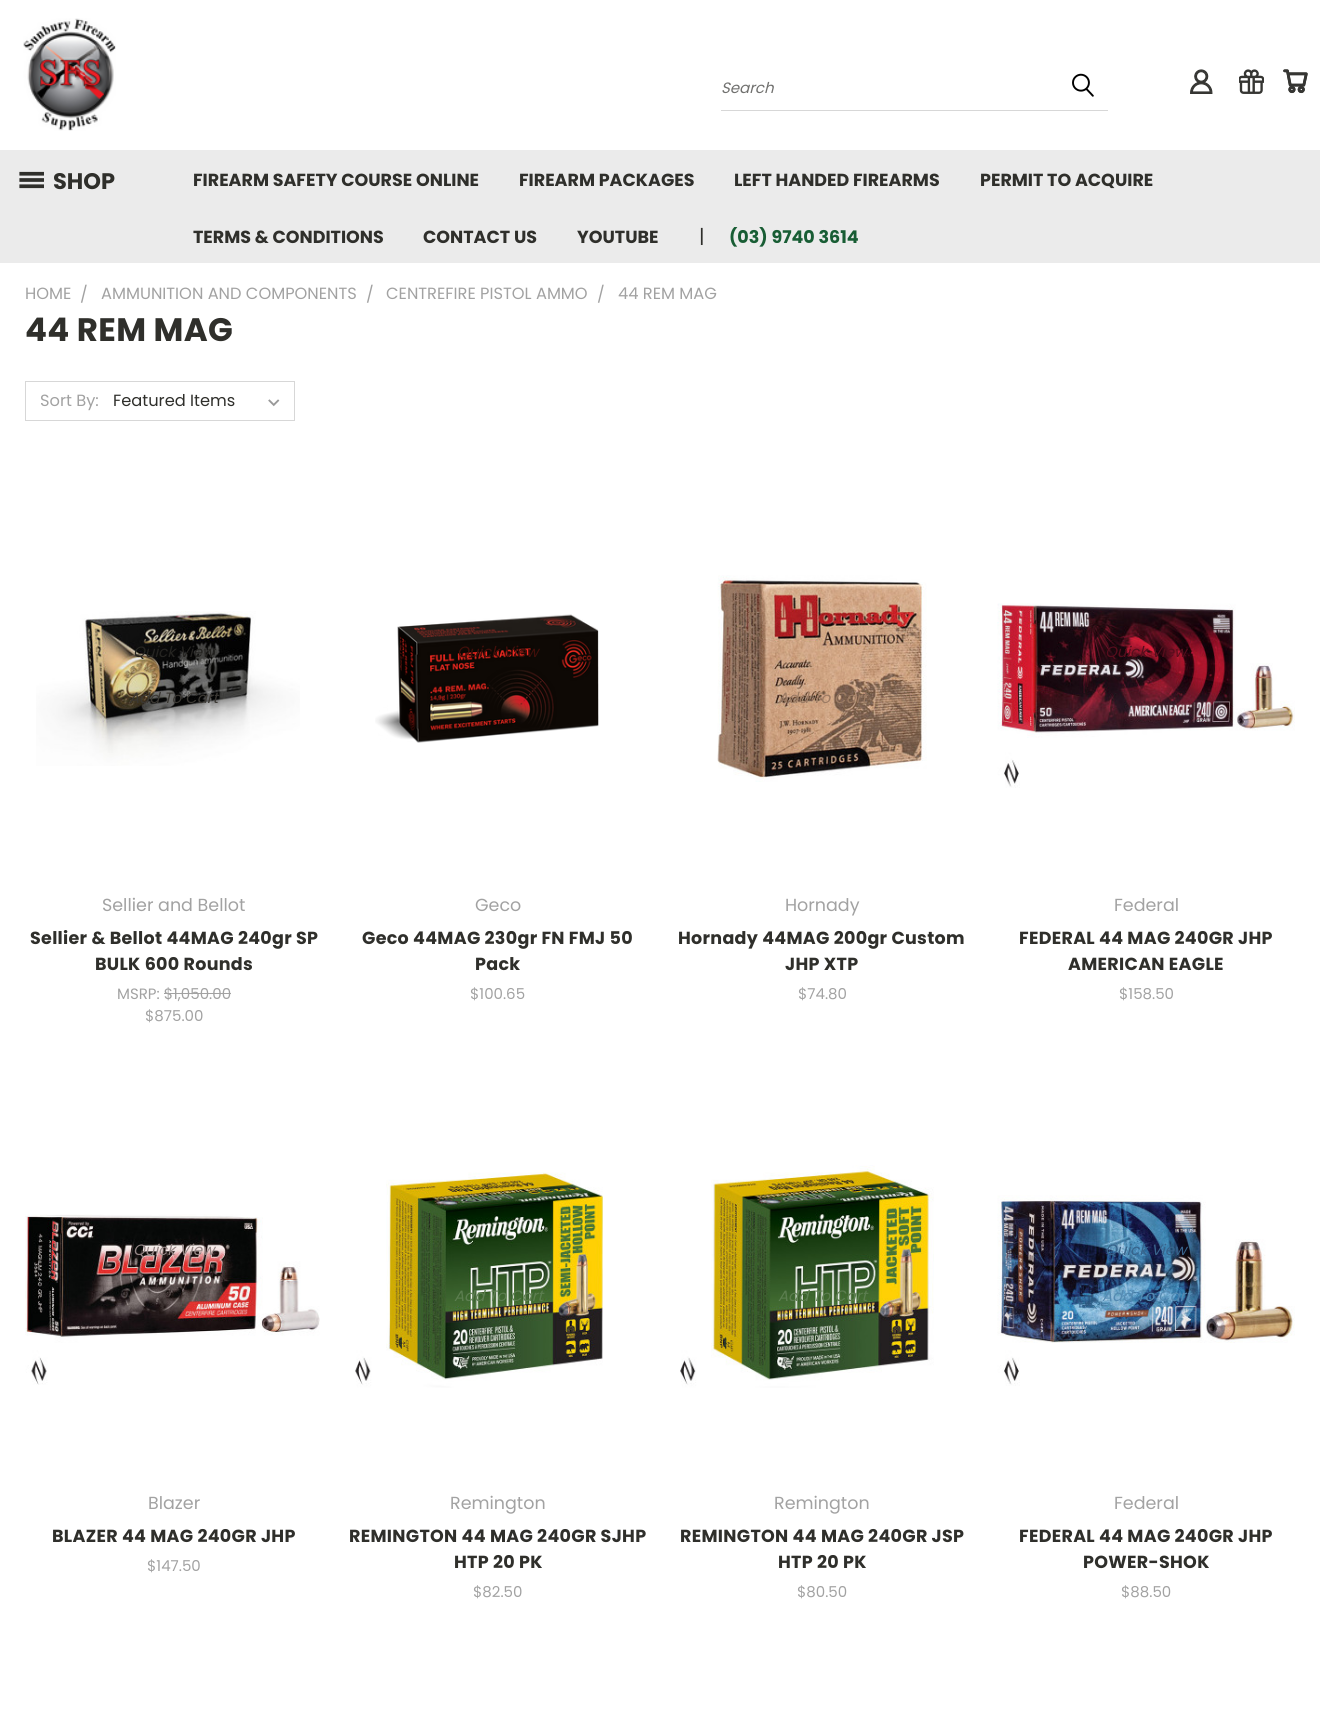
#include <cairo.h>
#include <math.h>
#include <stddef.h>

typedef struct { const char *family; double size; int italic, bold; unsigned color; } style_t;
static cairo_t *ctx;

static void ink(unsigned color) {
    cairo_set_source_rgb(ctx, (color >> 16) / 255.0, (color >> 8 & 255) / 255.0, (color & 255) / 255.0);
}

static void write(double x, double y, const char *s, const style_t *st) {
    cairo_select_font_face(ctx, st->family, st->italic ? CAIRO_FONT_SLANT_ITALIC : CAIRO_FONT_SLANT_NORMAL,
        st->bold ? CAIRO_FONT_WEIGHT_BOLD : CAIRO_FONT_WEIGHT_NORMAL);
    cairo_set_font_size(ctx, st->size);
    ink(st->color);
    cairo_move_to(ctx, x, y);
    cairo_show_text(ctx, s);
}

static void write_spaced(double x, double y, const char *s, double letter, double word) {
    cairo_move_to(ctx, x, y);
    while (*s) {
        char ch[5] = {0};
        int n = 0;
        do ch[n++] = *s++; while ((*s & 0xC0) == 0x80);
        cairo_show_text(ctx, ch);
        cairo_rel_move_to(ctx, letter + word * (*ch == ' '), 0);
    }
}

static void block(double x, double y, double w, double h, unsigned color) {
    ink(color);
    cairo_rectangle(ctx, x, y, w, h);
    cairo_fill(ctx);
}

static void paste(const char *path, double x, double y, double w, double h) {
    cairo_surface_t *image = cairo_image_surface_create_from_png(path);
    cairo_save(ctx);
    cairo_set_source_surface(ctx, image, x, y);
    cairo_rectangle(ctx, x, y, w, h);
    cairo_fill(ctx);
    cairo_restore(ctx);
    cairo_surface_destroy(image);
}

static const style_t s1 = {"Poppins", 15, 1, 0, 0x70706e};
static const style_t s2 = {"Poppins", 22.5, 0, 1, 0x2f2f2b};
static const style_t s3 = {"Poppins", 17.5, 0, 1, 0x2f2f2b};
static const style_t s4 = {"Poppins", 19, 0, 0, 0x2f2f2b};
static const style_t s5 = {"Poppins", 17.5, 0, 1, 0x185d34};
static const style_t s6 = {"Poppins", 16.25, 0, 0, 0xa2a2a2};
static const style_t s7 = {"Poppins", 16.25, 0, 0, 0x2f2f2b};
static const style_t s8 = {"Poppins", 15, 1, 0, 0x252421};
static const style_t s9 = {"Poppins", 15, 1, 0, 0x3b3833};
static const style_t s10 = {"Poppins", 17.5, 0, 0, 0xa2a2a2};
static const style_t s11 = {"Poppins", 15, 0, 0, 0xa2a2a2};
static const style_t s12 = {"Poppins", 15, 1, 0, 0x420f0a};
static const style_t s13 = {"Poppins", 15, 1, 0, 0x9c7b63};
static const style_t s14 = {"Poppins", 15, 1, 0, 0x570d1c};
static const style_t s15 = {"Poppins", 15, 1, 0, 0x948685};
static const style_t s16 = {"Poppins", 15, 1, 0, 0x5c7e50};
static const style_t s17 = {"Poppins", 15, 1, 0, 0x38648c};
static const style_t s18 = {"Poppins", 15, 1, 0, 0x548ab2};

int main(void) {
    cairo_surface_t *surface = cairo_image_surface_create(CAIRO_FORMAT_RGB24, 1320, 1733);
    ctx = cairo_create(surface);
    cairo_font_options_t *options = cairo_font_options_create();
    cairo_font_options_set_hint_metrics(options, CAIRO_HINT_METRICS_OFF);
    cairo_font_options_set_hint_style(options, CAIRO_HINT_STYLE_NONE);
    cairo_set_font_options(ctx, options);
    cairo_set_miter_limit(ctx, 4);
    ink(0xffffff);
    cairo_paint(ctx);
    paste("pic1.png", 23, 18, 93, 113);
    block(721, 110, 387, 1, 0xd7d7d7);
    write(721, 93, "Search", &s1);
    paste("pic2.png", 1072, 73, 22, 24);
    paste("pic3.png", 1190, 69, 23, 25);
    paste("pic4.png", 1239, 69, 25, 25);
    paste("pic5.png", 1283, 69, 25, 25);
    block(0, 150, 1320, 113, 0xebebeb);
    paste("pic6.png", 19, 171, 25, 18);
    write(53, 189, "SHOP", &s2);
    write(193, 186, "FIREARM SAFETY COURSE ONLINE", &s3);
    write(519, 186, "FIREARM PACKAGES", &s3);
    write(734, 186, "LEFT HANDED FIREARMS", &s3);
    write(980, 186, "PERMIT TO ACQUIRE", &s3);
    write(193, 243, "TERMS & CONDITIONS", &s3);
    write(423, 243, "CONTACT US", &s3);
    write(577, 243, "YOUTUBE", &s3);
    write(699, 243, "|", &s4);
    write(729, 243, "(03) 9740 3614", &s5);
    write(25, 299, "HOME", &s6);
    write(80, 300, "/", &s6);
    write(101, 299, "AMMUNITION AND COMPONENTS", &s6);
    write(366, 300, "/", &s6);
    write(386, 299, "CENTREFIRE PISTOL AMMO", &s6);
    write(597, 300, "/", &s6);
    write(618, 299, "44 REM MAG", &s6);
    cairo_select_font_face(ctx, "Poppins", CAIRO_FONT_SLANT_NORMAL, CAIRO_FONT_WEIGHT_BOLD);
    cairo_set_font_size(ctx, 32.5);
    ink(0x2f2f2b);
    write_spaced(25, 341, "44 REM MAG", 0.3, 0);
    cairo_rectangle(ctx, 25.5, 381.5, 269, 39);
    ink(0xd7d7d7);
    cairo_set_line_width(ctx, 1);
    cairo_stroke(ctx);
    write(40, 406, "Sort By:", &s6);
    paste("pic7.png", 268, 399, 12, 8);
    write(113, 406, "Featured Items", &s7);
    paste("pic8.png", 36, 611, 264, 155);
    write(133, 657, "Quick View", &s8);
    write(129, 703, "Add To Cart", &s9);
    write(102, 911, "Sellier and Bellot", &s10);
    cairo_select_font_face(ctx, "Poppins", CAIRO_FONT_SLANT_NORMAL, CAIRO_FONT_WEIGHT_BOLD);
    ink(0x2f2f2b);
    write_spaced(30, 944, "Sellier & Bellot 44MAG 240gr SP", 0.3, 0);
    write_spaced(95, 970, "BULK 600 Rounds", 0.3, 0);
    write(117, 999, "MSRP: $1,050.00", &s11);
    block(164, 993, 67, 1, 0xa2a2a2);
    write(145, 1021, "$875.00", &s11);
    paste("pic9.png", 375, 614, 224, 129);
    write(457, 657, "Quick View", &s12);
    write(475, 911, "Geco", &s10);
    cairo_select_font_face(ctx, "Poppins", CAIRO_FONT_SLANT_NORMAL, CAIRO_FONT_WEIGHT_BOLD);
    ink(0x2f2f2b);
    write_spaced(362, 944, "Geco 44MAG 230gr FN FMJ 50", 0.3, 0);
    write_spaced(475, 970, "Pack", 0.3, 0);
    write(470, 999, "$100.65", &s11);
    paste("pic10.png", 717, 575, 210, 207);
    write(778, 703, "Add To Cart", &s13);
    write(785, 911, "Hornady", &s10);
    cairo_select_font_face(ctx, "Poppins", CAIRO_FONT_SLANT_NORMAL, CAIRO_FONT_WEIGHT_BOLD);
    ink(0x2f2f2b);
    write_spaced(678, 944, "Hornady 44MAG 200gr Custom", 0.3, 0);
    write_spaced(785, 970, "JHP XTP", 0.3, 0);
    write(798, 999, "$74.80", &s11);
    paste("pic11.png", 997, 603, 298, 185);
    write(1105, 657, "Quick View", &s14);
    write(1114, 911, "Federal", &s10);
    cairo_select_font_face(ctx, "Poppins", CAIRO_FONT_SLANT_NORMAL, CAIRO_FONT_WEIGHT_BOLD);
    ink(0x2f2f2b);
    write_spaced(1019, 944, "FEDERAL 44 MAG 240GR JHP", 0.3, 0);
    write_spaced(1068, 970, "AMERICAN EAGLE", 0.3, 0);
    write(1119, 999, "$158.50", &s11);
    paste("pic12.png", 25, 1214, 295, 171);
    write(133, 1255, "Quick View", &s15);
    write(148, 1509, "Blazer", &s10);
    cairo_select_font_face(ctx, "Poppins", CAIRO_FONT_SLANT_NORMAL, CAIRO_FONT_WEIGHT_BOLD);
    ink(0x2f2f2b);
    write_spaced(52, 1542, "BLAZER 44 MAG 240GR JHP", 0.3, 0);
    write(147, 1571, "$147.50", &s11);
    paste("pic13.png", 355, 1172, 248, 216);
    write(454, 1301, "Add To Cart", &s16);
    write(450, 1509, "Remington", &s10);
    cairo_select_font_face(ctx, "Poppins", CAIRO_FONT_SLANT_NORMAL, CAIRO_FONT_WEIGHT_BOLD);
    ink(0x2f2f2b);
    write_spaced(349, 1542, "REMINGTON 44 MAG 240GR SJHP", 0.3, 0);
    write_spaced(454, 1568, "HTP 20 PK", 0.3, 0);
    write(473, 1597, "$82.50", &s11);
    paste("pic14.png", 680, 1165, 254, 223);
    write(778, 1301, "Add To Cart", &s16);
    write(774, 1509, "Remington", &s10);
    cairo_select_font_face(ctx, "Poppins", CAIRO_FONT_SLANT_NORMAL, CAIRO_FONT_WEIGHT_BOLD);
    ink(0x2f2f2b);
    write_spaced(680, 1542, "REMINGTON 44 MAG 240GR JSP", 0.3, 0);
    write_spaced(778, 1568, "HTP 20 PK", 0.3, 0);
    write(797, 1597, "$80.50", &s11);
    paste("pic15.png", 997, 1195, 298, 191);
    write(1105, 1255, "Quick View", &s17);
    write(1102, 1301, "Add To Cart", &s18);
    write(1114, 1509, "Federal", &s10);
    cairo_select_font_face(ctx, "Poppins", CAIRO_FONT_SLANT_NORMAL, CAIRO_FONT_WEIGHT_BOLD);
    ink(0x2f2f2b);
    write_spaced(1019, 1542, "FEDERAL 44 MAG 240GR JHP", 0.3, 0);
    write_spaced(1083, 1568, "POWER-SHOK", 0.3, 0);
    write(1121, 1597, "$88.50", &s11);
    cairo_surface_write_to_png(surface, "screenshot.png");
    cairo_font_options_destroy(options);
    cairo_destroy(ctx);
    cairo_surface_destroy(surface);
    return 0;
}
